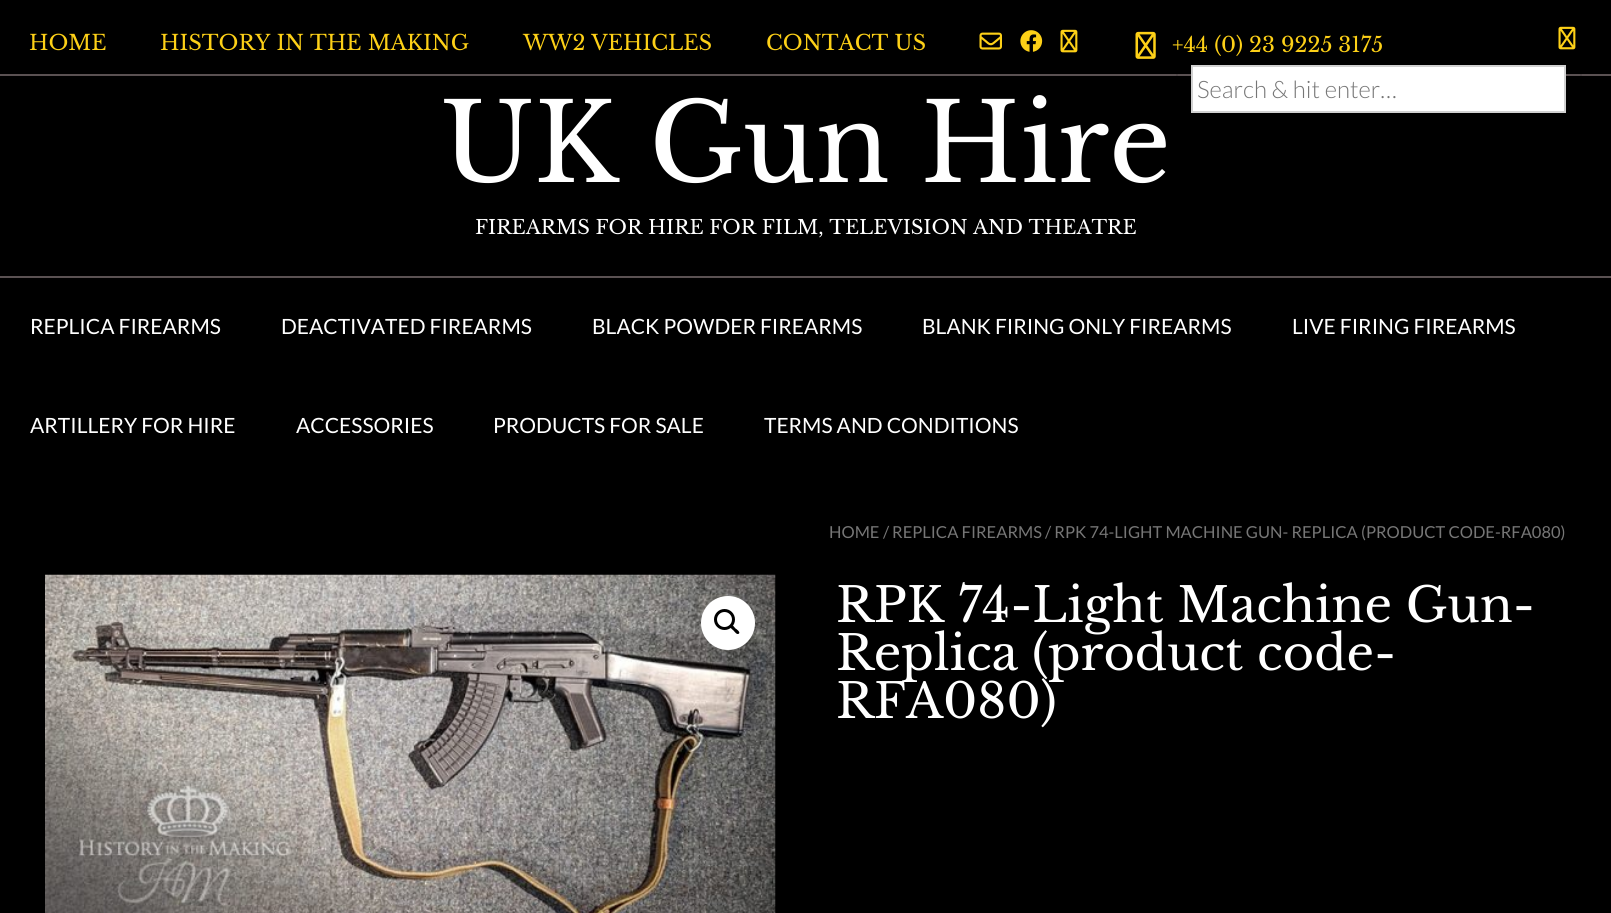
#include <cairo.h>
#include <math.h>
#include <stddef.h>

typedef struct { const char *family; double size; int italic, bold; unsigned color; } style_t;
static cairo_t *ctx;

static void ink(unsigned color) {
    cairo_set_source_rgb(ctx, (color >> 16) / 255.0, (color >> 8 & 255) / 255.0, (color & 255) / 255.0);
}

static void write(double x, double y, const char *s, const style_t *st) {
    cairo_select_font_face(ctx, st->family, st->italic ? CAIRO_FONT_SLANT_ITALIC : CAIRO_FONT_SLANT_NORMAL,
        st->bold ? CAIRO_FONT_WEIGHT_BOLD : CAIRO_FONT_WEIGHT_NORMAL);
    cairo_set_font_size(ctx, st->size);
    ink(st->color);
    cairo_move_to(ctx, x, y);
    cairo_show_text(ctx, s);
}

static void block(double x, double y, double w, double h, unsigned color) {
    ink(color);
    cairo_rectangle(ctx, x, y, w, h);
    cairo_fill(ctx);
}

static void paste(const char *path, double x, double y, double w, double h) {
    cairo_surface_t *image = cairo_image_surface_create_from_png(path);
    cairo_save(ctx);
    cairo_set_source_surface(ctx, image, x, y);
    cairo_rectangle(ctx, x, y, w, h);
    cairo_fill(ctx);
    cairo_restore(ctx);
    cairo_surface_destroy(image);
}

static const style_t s1 = {"Libre Baskerville", 21, 0, 0, 0xfdd017};
static const style_t s2 = {"Lato Light", 24, 0, 0, 0x767676};
static const style_t s3 = {"Libre Baskerville", 108, 0, 0, 0xffffff};
static const style_t s4 = {"Libre Baskerville", 19.5, 0, 0, 0xffffff};
static const style_t s5 = {"Lato", 21, 0, 0, 0xffffff};
static const style_t s6 = {"Lato", 16.5, 0, 0, 0x767676};
static const style_t s7 = {"Libre Baskerville", 48, 0, 0, 0xffffff};

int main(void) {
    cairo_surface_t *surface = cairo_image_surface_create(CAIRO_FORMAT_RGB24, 1611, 913);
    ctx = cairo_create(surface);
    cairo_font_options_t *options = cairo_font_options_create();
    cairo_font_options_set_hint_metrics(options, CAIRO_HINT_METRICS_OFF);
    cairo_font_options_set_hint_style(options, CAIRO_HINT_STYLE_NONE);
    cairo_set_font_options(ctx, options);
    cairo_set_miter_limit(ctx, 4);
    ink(0x000000);
    cairo_paint(ctx);
    block(0, 74, 1611, 2, 0x5a5152);
    block(1176, 74, 2, 2, 0x51494a);
    block(1580, 74, 2, 2, 0x51494a);
    write(29, 50, "HOME", &s1);
    write(160, 50, "HISTORY IN THE MAKING", &s1);
    write(523, 50, "WW2 VEHICLES", &s1);
    write(766, 50, "CONTACT US", &s1);
    paste("pic1.png", 979, 32, 23, 18);
    paste("pic2.png", 1020, 30, 23, 22);
    paste("pic3.png", 1060, 29, 18, 24);
    paste("pic4.png", 1135, 31, 21, 28);
    write(1172, 52, "+44 (0) 23 9225 3175", &s1);
    paste("pic3.png", 1558, 26, 18, 24);
    ink(0xffffff);
    cairo_rectangle(ctx, 1192, 66, 373, 46);
    cairo_fill_preserve(ctx);
    ink(0xd1d1d1);
    cairo_stroke(ctx);
    write(1197, 98, "Search & hit enter…", &s2);
    write(441, 182, "UK Gun Hire", &s3);
    write(475, 234, "FIREARMS FOR HIRE FOR FILM, TELEVISION AND THEATRE", &s4);
    block(0, 276, 1611, 2, 0x5a5152);
    write(30, 334, "REPLICA FIREARMS", &s5);
    write(281, 334, "DEACTIVATED FIREARMS", &s5);
    write(592, 334, "BLACK POWDER FIREARMS", &s5);
    write(922, 334, "BLANK FIRING ONLY FIREARMS", &s5);
    write(1292, 334, "LIVE FIRING FIREARMS", &s5);
    write(30, 433, "ARTILLERY FOR HIRE", &s5);
    write(296, 433, "ACCESSORIES", &s5);
    write(493, 433, "PRODUCTS FOR SALE", &s5);
    write(764, 433, "TERMS AND CONDITIONS", &s5);
    write(829, 538, "HOME", &s6);
    write(883, 538, "/", &s6);
    write(892, 538, "REPLICA FIREARMS", &s6);
    write(1045, 538, "/ RPK 74-LIGHT MACHINE GUN- REPLICA (PRODUCT CODE-RFA080)", &s6);
    paste("pic5.png", 45, 574, 731, 339);
    ink(0xffffff);
    cairo_arc(ctx, 728, 623, 27, 0, 2 * M_PI);
    cairo_fill(ctx);
    cairo_arc(ctx, 724.5, 619.5, 9, 0, 2 * M_PI);
    ink(0x000000);
    cairo_set_line_width(ctx, 3);
    cairo_stroke(ctx);
    cairo_new_path(ctx);
    cairo_move_to(ctx, 730.5, 625);
    cairo_curve_to(ctx, 732, 623.5, 734.5, 627.5, 735.5, 628.5);
    cairo_curve_to(ctx, 736.5, 629, 740.5, 632, 739, 633.5);
    cairo_curve_to(ctx, 737, 635.5, 734.5, 631.5, 733.5, 630.5);
    cairo_curve_to(ctx, 732.5, 629.5, 728.5, 627, 730.5, 625);
    cairo_close_path(ctx);
    cairo_fill(ctx);
    write(836, 622, "RPK 74-Light Machine Gun-", &s7);
    write(836, 670, "Replica (product code-", &s7);
    write(836, 718, "RFA080)", &s7);
    cairo_surface_write_to_png(surface, "screenshot.png");
    cairo_font_options_destroy(options);
    cairo_destroy(ctx);
    cairo_surface_destroy(surface);
    return 0;
}
